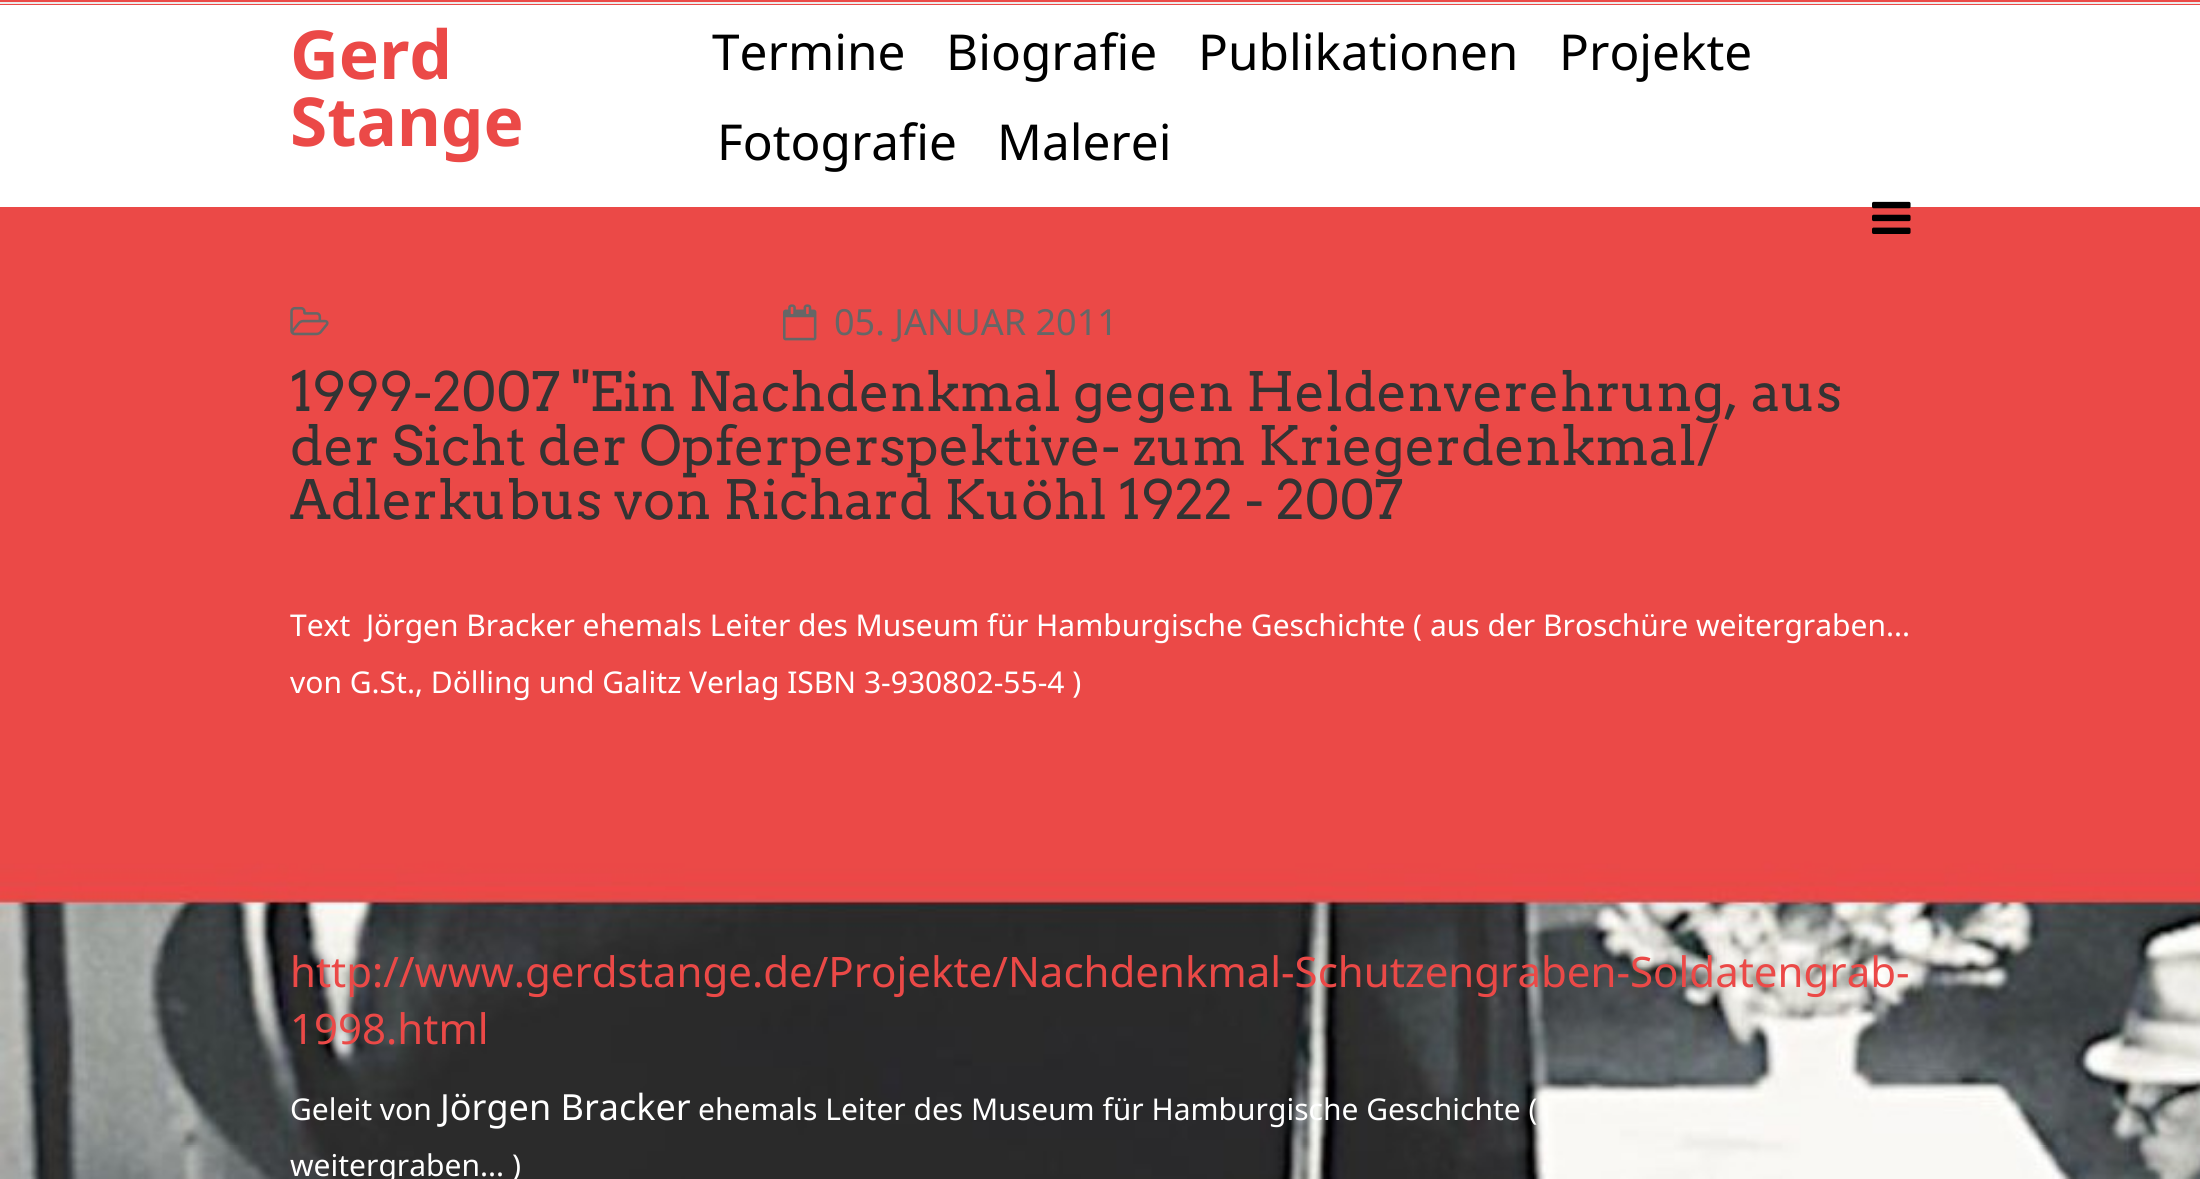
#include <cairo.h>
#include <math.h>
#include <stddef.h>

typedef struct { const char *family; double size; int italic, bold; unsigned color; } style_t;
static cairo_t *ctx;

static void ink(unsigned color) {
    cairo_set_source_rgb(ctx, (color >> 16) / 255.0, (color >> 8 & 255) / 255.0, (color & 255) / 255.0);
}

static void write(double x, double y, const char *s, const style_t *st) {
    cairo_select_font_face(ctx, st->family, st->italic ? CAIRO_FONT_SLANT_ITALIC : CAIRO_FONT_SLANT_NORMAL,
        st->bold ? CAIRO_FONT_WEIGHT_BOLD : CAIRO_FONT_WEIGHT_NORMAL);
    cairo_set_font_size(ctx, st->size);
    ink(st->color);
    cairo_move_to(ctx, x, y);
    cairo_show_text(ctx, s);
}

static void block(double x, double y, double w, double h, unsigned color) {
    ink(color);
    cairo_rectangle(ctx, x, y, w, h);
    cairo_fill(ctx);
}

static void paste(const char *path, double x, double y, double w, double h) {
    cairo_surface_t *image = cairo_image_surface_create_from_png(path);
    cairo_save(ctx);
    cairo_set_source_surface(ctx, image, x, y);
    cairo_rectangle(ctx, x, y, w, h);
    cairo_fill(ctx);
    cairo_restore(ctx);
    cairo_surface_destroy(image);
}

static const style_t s1 = {"Noto Sans", 67.5, 0, 1, 0xeb4947};
static const style_t s2 = {"Noto Sans", 49.5, 0, 0, 0x000000};
static const style_t s3 = {"Noto Sans", 36, 0, 0, 0x666666};
static const style_t s4 = {"Arvo", 54, 0, 0, 0x333333};
static const style_t s5 = {"Noto Sans", 30, 0, 0, 0xffffff};
static const style_t s6 = {"Noto Sans", 42, 0, 0, 0xeb4947};
static const style_t s7 = {"Noto Sans", 36, 0, 0, 0xffffff};

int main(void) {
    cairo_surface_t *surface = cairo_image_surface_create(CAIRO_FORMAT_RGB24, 2200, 1179);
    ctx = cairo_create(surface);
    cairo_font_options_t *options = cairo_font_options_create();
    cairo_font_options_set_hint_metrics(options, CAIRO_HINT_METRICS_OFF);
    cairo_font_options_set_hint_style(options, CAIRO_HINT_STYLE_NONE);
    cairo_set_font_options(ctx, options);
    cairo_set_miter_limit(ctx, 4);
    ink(0xffffff);
    cairo_paint(ctx);
    paste("pic1.png", 0, 0, 2200, 1179);
    block(0, 2, 2200, 2, 0xebebeb);
    block(0, 5, 2200, 202, 0xffffff);
    write(290, 79, "Gerd", &s1);
    write(290, 146, "Stange", &s1);
    write(712, 70, "Termine", &s2);
    write(946, 70, "Biografie", &s2);
    write(1198, 70, "Publikationen", &s2);
    write(1559, 70, "Projekte", &s2);
    write(717, 160, "Fotografie", &s2);
    write(997, 160, "Malerei", &s2);
    paste("pic2.png", 1872, 201, 39, 33);
    paste("pic3.png", 290, 306, 39, 30);
    paste("pic4.png", 783, 304, 34, 37);
    write(834, 335, "05. JANUAR 2011", &s3);
    write(290, 411, "1999-2007 \"Ein Nachdenkmal gegen Heldenverehrung, aus", &s4);
    write(290, 465, "der Sicht der Opferperspektive- zum Kriegerdenkmal/", &s4);
    write(290, 519, "Adlerkubus von Richard Kuöhl 1922 - 2007", &s4);
    write(290, 636, "Text  Jörgen Bracker ehemals Leiter des Museum für Hamburgische Geschichte ( aus der Broschüre weitergraben...", &s5);
    write(290, 693, "von G.St., Dölling und Galitz Verlag ISBN 3-930802-55-4 )", &s5);
    write(290, 987, "http://www.gerdstange.de/Projekte/Nachdenkmal-Schutzengraben-Soldatengrab-", &s6);
    write(290, 1044, "1998.html", &s6);
    write(290, 1120, "Geleit von", &s5);
    write(440, 1120, "Jörgen Bracker", &s7);
    write(698, 1120, "ehemals Leiter des Museum für Hamburgische Geschichte (", &s5);
    write(290, 1176, "weitergraben... )", &s5);
    cairo_surface_write_to_png(surface, "screenshot.png");
    cairo_font_options_destroy(options);
    cairo_destroy(ctx);
    cairo_surface_destroy(surface);
    return 0;
}
